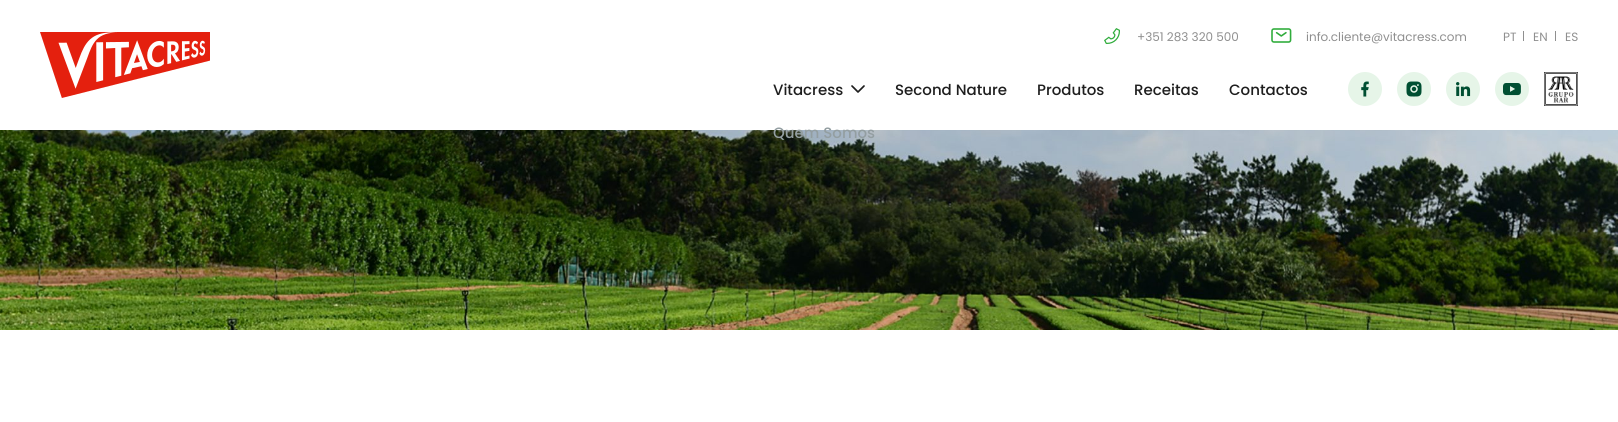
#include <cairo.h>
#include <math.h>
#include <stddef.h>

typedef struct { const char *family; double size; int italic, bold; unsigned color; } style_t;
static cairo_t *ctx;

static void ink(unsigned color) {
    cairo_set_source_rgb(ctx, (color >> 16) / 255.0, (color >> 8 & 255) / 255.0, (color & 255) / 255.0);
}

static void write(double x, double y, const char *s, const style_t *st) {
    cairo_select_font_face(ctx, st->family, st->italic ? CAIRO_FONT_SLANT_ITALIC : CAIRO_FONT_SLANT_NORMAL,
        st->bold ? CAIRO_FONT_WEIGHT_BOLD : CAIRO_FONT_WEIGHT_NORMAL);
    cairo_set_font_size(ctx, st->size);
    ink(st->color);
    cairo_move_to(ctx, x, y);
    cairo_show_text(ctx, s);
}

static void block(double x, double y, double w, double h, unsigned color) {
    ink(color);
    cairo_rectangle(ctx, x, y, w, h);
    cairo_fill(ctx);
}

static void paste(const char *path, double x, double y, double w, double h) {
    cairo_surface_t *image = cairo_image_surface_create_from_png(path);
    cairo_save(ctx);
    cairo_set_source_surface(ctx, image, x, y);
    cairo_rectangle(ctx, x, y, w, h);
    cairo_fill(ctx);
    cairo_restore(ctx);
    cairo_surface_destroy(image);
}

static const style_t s1 = {"Poppins", 12, 0, 0, 0x8f8f8f};
static const style_t s2 = {"Poppins Medium", 15, 0, 0, 0x1e1e1e};
static const style_t s3 = {"Poppins Medium", 15, 0, 0, 0x939ea1};
static const style_t s4 = {"Poppins Medium", 15, 0, 0, 0x2a341f};

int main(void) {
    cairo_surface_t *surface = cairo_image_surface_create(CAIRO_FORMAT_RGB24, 1618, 422);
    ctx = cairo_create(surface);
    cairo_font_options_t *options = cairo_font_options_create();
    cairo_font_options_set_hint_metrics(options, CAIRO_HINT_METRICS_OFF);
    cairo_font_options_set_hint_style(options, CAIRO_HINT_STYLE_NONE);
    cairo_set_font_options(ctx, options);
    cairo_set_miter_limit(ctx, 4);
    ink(0xffffff);
    cairo_paint(ctx);
    paste("pic1.png", 40, 32, 170, 66);
    paste("pic2.png", 1104, 28, 16, 16);
    write(1137, 41, "+351 283 320 500", &s1);
    paste("pic3.png", 1271, 28, 21, 15);
    write(1306, 41, "info.cliente@vitacress.com", &s1);
    write(1503, 41, "PT", &s1);
    block(1523, 31, 1, 10, 0x8f8f8f);
    write(1533, 41, "EN", &s1);
    block(1555, 31, 1, 10, 0x8f8f8f);
    write(1565, 41, "ES", &s1);
    write(773, 95, "Vitacress", &s2);
    cairo_new_path(ctx);
    cairo_move_to(ctx, 852, 86);
    cairo_line_to(ctx, 858, 92);
    cairo_line_to(ctx, 864, 86);
    cairo_set_line_width(ctx, 1.7);
    cairo_set_line_cap(ctx, CAIRO_LINE_CAP_ROUND);
    cairo_set_line_join(ctx, CAIRO_LINE_JOIN_ROUND);
    cairo_stroke(ctx);
    paste("pic9.png", 0, 130, 1618, 200);
    write(773, 138, "Quem Somos", &s3);
    write(958, 171, ".", &s4);
    write(895, 95, "Second Nature", &s2);
    write(1037, 95, "Produtos", &s2);
    write(1134, 95, "Receitas", &s2);
    write(1229, 95, "Contactos", &s2);
    ink(0xe6f5e8);
    cairo_new_path(ctx);
    cairo_arc(ctx, 1365, 89, 17, 0, 2 * M_PI);
    cairo_fill(ctx);
    paste("pic4.png", 1361, 81, 8, 16);
    cairo_arc(ctx, 1414, 89, 17, 0, 2 * M_PI);
    cairo_fill(ctx);
    paste("pic5.png", 1406, 81, 16, 16);
    cairo_arc(ctx, 1463, 89, 17, 0, 2 * M_PI);
    cairo_fill(ctx);
    paste("pic6.png", 1456, 82, 15, 15);
    cairo_arc(ctx, 1512, 89, 17, 0, 2 * M_PI);
    cairo_fill(ctx);
    paste("pic7.png", 1503, 83, 18, 13);
    paste("pic8.png", 1544, 72, 34, 34);
    cairo_surface_write_to_png(surface, "screenshot.png");
    cairo_font_options_destroy(options);
    cairo_destroy(ctx);
    cairo_surface_destroy(surface);
    return 0;
}
